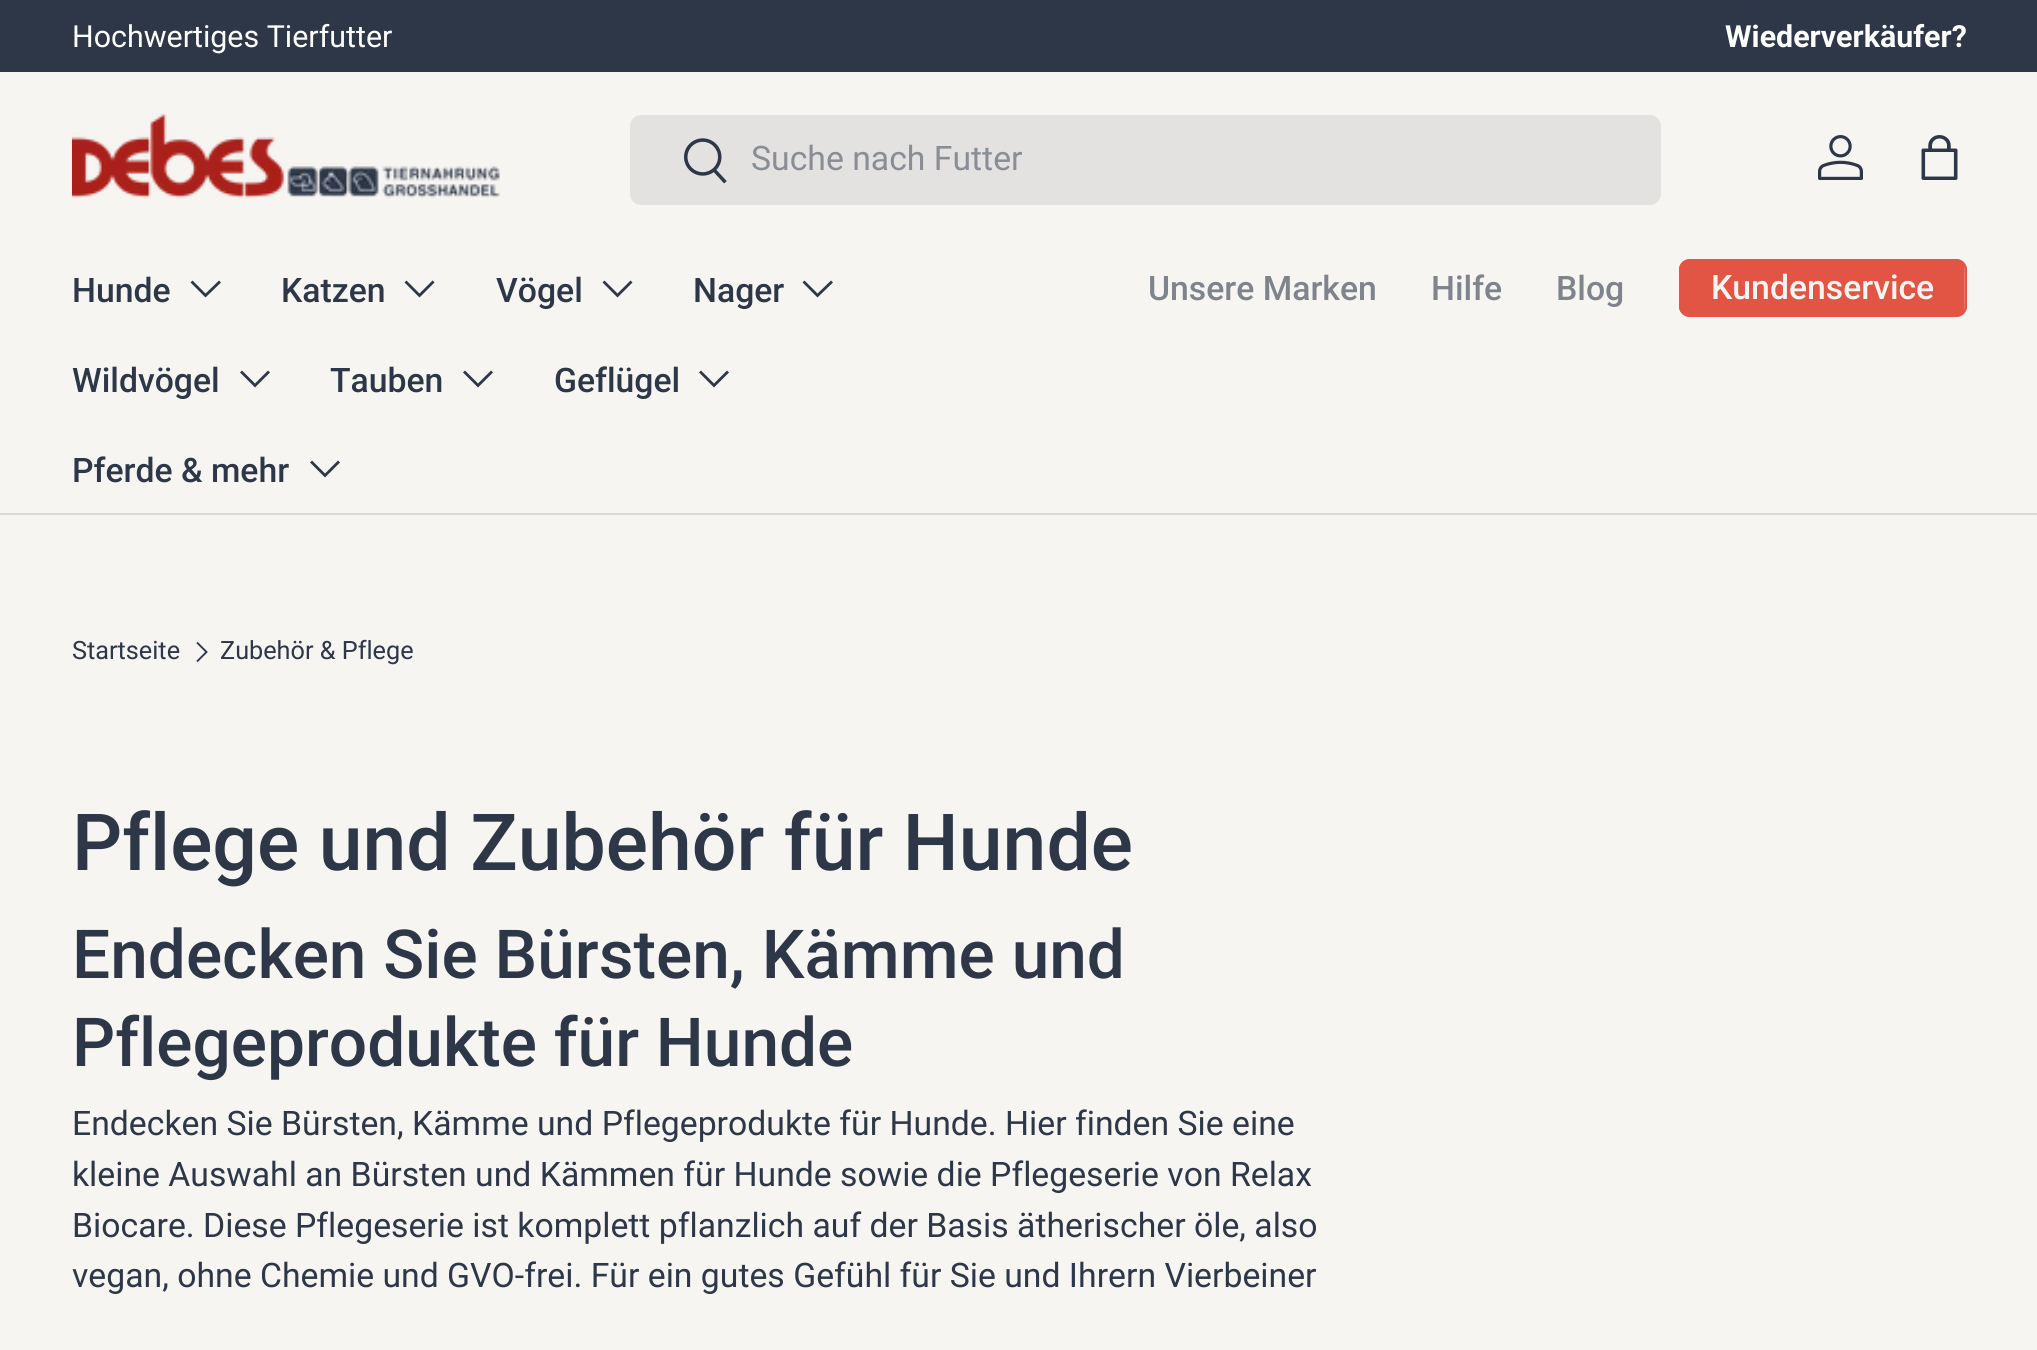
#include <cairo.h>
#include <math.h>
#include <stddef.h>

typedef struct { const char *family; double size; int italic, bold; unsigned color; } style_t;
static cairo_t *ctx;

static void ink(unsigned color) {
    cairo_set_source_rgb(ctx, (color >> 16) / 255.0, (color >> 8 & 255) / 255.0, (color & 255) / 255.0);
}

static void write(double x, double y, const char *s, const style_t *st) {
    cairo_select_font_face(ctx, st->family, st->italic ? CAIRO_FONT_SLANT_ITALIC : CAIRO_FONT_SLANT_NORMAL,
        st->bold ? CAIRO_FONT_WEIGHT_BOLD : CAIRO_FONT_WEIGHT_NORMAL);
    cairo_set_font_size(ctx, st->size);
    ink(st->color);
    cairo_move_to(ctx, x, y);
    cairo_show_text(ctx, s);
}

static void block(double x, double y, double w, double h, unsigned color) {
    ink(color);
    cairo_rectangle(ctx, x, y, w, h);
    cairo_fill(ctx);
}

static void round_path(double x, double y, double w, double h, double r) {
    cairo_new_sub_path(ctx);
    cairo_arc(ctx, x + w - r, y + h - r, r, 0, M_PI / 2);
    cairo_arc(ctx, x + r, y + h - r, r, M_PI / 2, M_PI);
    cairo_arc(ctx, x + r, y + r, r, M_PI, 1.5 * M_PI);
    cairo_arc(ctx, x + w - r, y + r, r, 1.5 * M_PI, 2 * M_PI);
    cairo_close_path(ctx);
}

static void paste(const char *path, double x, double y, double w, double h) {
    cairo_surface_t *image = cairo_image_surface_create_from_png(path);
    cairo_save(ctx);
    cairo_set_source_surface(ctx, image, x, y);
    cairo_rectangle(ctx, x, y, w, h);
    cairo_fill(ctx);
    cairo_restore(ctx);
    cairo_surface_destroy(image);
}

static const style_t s1 = {"Roboto", 30.4, 0, 0, 0xffffff};
static const style_t s2 = {"Roboto", 30.4, 0, 1, 0xffffff};
static const style_t s3 = {"Roboto", 33.75, 0, 0, 0x898d95};
static const style_t s4 = {"Roboto Medium", 33.75, 0, 0, 0x2e3748};
static const style_t s5 = {"Roboto Medium", 33.75, 0, 0, 0x7e838c};
static const style_t s6 = {"Roboto Medium", 33.75, 0, 0, 0xf7f5f2};
static const style_t s7 = {"Roboto", 25.25, 0, 0, 0x2e3748};
static const style_t s8 = {"Roboto Medium", 78.75, 0, 0, 0x2e3748};
static const style_t s9 = {"Roboto Medium", 67.6, 0, 0, 0x2e3748};
static const style_t s10 = {"Roboto", 33.75, 0, 0, 0x2e3748};

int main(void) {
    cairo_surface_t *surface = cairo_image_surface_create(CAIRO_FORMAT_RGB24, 2037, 1350);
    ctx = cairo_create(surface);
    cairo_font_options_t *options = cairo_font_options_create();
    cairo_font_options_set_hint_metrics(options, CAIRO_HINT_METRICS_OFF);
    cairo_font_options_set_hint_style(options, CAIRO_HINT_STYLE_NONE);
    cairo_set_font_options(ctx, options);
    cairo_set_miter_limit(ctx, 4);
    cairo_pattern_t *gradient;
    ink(0xf7f5f2);
    cairo_paint(ctx);
    block(0, 0, 2037, 72, 0x2e3748);
    write(72, 47, "Hochwertiges Tierfutter", &s1);
    write(1725, 47, "Wiederverkäufer?", &s2);
    block(0, 513, 2037, 2, 0xd9d9d9);
    paste("pic1.png", 72, 114, 428, 85);
    ink(0xe3e2e1);
    round_path(630, 115, 1031, 90, 11);
    cairo_fill(ctx);
    paste("pic2.png", 684, 138, 43, 46);
    write(751, 170, "Suche nach Futter", &s3);
    paste("pic3.png", 1818, 135, 45, 45);
    paste("pic4.png", 1921, 135, 37, 45);
    write(72, 302, "Hunde", &s4);
    cairo_new_path(ctx);
    cairo_move_to(ctx, 220, 281.5);
    cairo_line_to(ctx, 205.5, 295.5);
    cairo_line_to(ctx, 191.5, 281.5);
    cairo_set_line_width(ctx, 2.8);
    cairo_stroke(ctx);
    write(281, 302, "Katzen", &s4);
    cairo_new_path(ctx);
    cairo_move_to(ctx, 433.5, 281.5);
    cairo_line_to(ctx, 419.5, 295.5);
    cairo_line_to(ctx, 405.5, 281.5);
    cairo_stroke(ctx);
    write(496, 302, "Vögel", &s4);
    cairo_new_path(ctx);
    cairo_move_to(ctx, 631.5, 281.5);
    cairo_line_to(ctx, 617.5, 295.5);
    cairo_line_to(ctx, 603.5, 281.5);
    cairo_stroke(ctx);
    write(693, 302, "Nager", &s4);
    cairo_new_path(ctx);
    cairo_move_to(ctx, 832, 281.5);
    cairo_line_to(ctx, 817.5, 295.5);
    cairo_line_to(ctx, 803.5, 281.5);
    cairo_stroke(ctx);
    write(72, 392, "Wildvögel", &s4);
    cairo_new_path(ctx);
    cairo_move_to(ctx, 269, 371.5);
    cairo_line_to(ctx, 255, 385.5);
    cairo_line_to(ctx, 241, 371.5);
    cairo_stroke(ctx);
    write(330, 392, "Tauben", &s4);
    cairo_new_path(ctx);
    cairo_move_to(ctx, 492, 371.5);
    cairo_line_to(ctx, 478, 385.5);
    cairo_line_to(ctx, 464, 371.5);
    cairo_stroke(ctx);
    write(554, 392, "Geflügel", &s4);
    cairo_new_path(ctx);
    cairo_move_to(ctx, 728, 371.5);
    cairo_line_to(ctx, 714, 385.5);
    cairo_line_to(ctx, 700, 371.5);
    cairo_stroke(ctx);
    write(72, 482, "Pferde & mehr", &s4);
    cairo_new_path(ctx);
    cairo_move_to(ctx, 339, 461.5);
    cairo_line_to(ctx, 325, 475.5);
    cairo_line_to(ctx, 311, 461.5);
    cairo_stroke(ctx);
    write(1148, 300, "Unsere Marken", &s5);
    write(1431, 300, "Hilfe", &s5);
    write(1556, 300, "Blog", &s5);
    ink(0xe7786a);
    round_path(1679, 259, 288, 58, 11);
    cairo_fill(ctx);
    cairo_save(ctx);
    round_path(1679, 259, 288, 58, 11);
    cairo_clip(ctx);
    gradient = cairo_pattern_create_linear(1132, 187, 1946, 389);
    cairo_pattern_add_color_stop_rgba(gradient, 0.6, 0.906, 0.471, 0.416, 1);
    cairo_pattern_add_color_stop_rgba(gradient, 0.6, 0.886, 0.329, 0.263, 1);
    cairo_pattern_add_color_stop_rgba(gradient, 1, 0.886, 0.329, 0.263, 1);
    cairo_set_source(ctx, gradient);
    cairo_pattern_destroy(gradient);
    cairo_rectangle(ctx, 1679, 261, 285, 54);
    cairo_fill(ctx);
    cairo_restore(ctx);
    round_path(1680, 260, 286, 56, 10);
    ink(0xe25443);
    cairo_set_line_width(ctx, 2);
    cairo_stroke(ctx);
    write(1711, 299, "Kundenservice", &s6);
    write(72, 659, "Startseite", &s7);
    cairo_new_path(ctx);
    cairo_move_to(ctx, 197, 642.5);
    cairo_line_to(ctx, 206.5, 652);
    cairo_line_to(ctx, 197, 661.5);
    cairo_set_line_width(ctx, 1.9);
    cairo_stroke(ctx);
    write(220, 659, "Zubehör & Pflege", &s7);
    write(72, 870, "Pflege und Zubehör für Hunde", &s8);
    write(72, 978, "Endecken Sie Bürsten, Kämme und", &s9);
    write(72, 1066, "Pflegeprodukte für Hunde", &s9);
    write(72, 1135, "Endecken Sie Bürsten, Kämme und Pflegeprodukte für Hunde. Hier finden Sie eine", &s10);
    write(72, 1186, "kleine Auswahl an Bürsten und Kämmen für Hunde sowie die Pflegeserie von Relax", &s10);
    write(72, 1237, "Biocare. Diese Pflegeserie ist komplett pflanzlich auf der Basis ätherischer öle, also", &s10);
    write(72, 1287, "vegan, ohne Chemie und GVO-frei. Für ein gutes Gefühl für Sie und Ihrern Vierbeiner", &s10);
    cairo_surface_write_to_png(surface, "screenshot.png");
    cairo_font_options_destroy(options);
    cairo_destroy(ctx);
    cairo_surface_destroy(surface);
    return 0;
}
